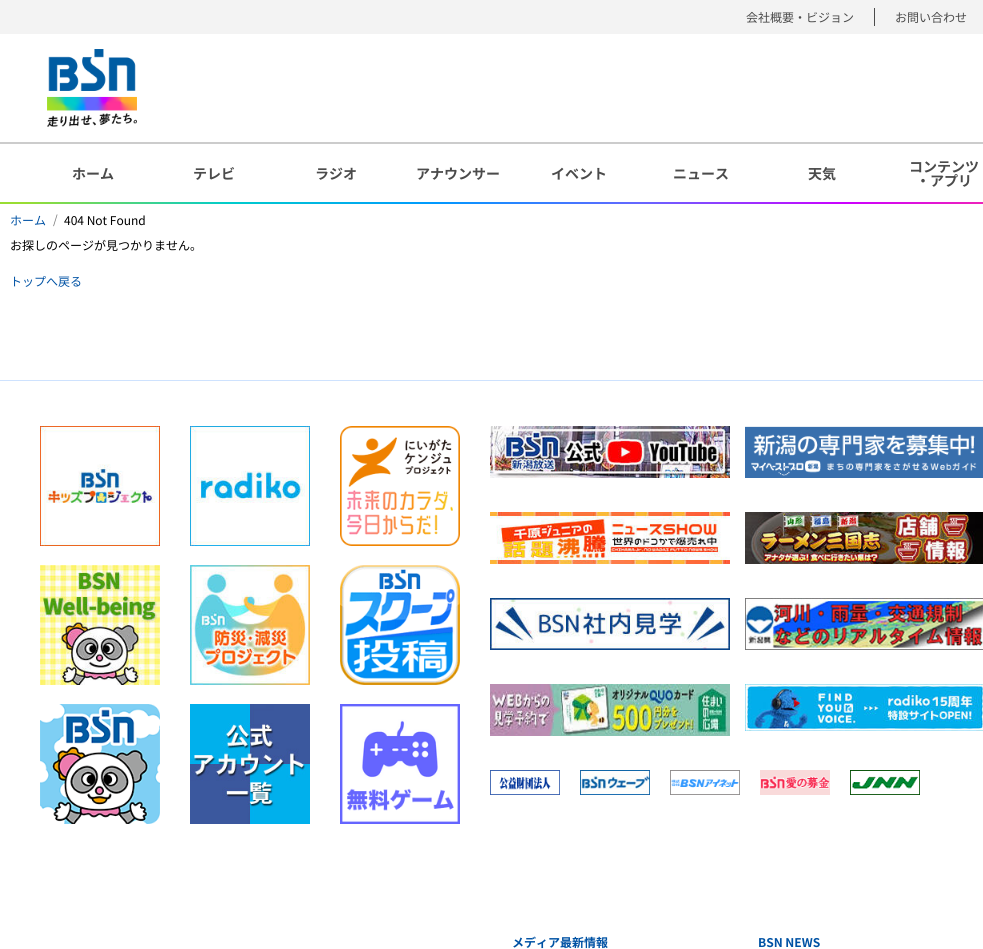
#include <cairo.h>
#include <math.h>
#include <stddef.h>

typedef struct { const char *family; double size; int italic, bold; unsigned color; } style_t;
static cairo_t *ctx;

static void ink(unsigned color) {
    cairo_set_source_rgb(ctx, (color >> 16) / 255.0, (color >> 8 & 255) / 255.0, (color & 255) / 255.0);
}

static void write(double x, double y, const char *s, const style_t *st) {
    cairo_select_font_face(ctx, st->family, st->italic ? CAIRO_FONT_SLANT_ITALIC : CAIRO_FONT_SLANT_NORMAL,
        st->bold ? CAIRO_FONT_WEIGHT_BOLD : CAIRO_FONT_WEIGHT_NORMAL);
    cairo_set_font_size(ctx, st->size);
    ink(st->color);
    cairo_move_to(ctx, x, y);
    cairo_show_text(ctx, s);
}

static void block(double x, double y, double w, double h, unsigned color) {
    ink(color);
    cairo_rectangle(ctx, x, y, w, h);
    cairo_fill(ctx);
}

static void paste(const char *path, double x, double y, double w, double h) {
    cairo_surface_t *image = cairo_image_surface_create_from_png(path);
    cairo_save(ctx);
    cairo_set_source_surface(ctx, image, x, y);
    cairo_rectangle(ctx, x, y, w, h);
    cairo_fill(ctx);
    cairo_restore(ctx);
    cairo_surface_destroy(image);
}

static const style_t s1 = {"Noto Sans JP", 12, 0, 0, 0x4b4b4b};
static const style_t s2 = {"Noto Sans JP", 14, 0, 1, 0x4b4b4b};
static const style_t s3 = {"Noto Sans JP", 12, 0, 0, 0x0052a4};
static const style_t s4 = {"Noto Sans JP", 12, 0, 0, 0x808080};
static const style_t s5 = {"Noto Sans JP", 12, 0, 0, 0x000000};
static const style_t s6 = {"Noto Sans JP", 12, 0, 1, 0x0052a4};

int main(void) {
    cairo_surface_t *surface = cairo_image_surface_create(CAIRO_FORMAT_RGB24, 983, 949);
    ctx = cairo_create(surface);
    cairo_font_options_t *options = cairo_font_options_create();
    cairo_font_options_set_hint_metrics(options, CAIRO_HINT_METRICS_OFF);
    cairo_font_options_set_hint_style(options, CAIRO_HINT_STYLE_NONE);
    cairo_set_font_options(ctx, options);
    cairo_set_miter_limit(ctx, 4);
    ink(0xffffff);
    cairo_paint(ctx);
    block(0, 142, 983, 2, 0xcccccc);
    block(0, 0, 983, 34, 0xf3f3f3);
    block(874, 8, 1, 18, 0x4b4b4b);
    write(746, 22, "会社概要・ビジョン", &s1);
    write(895, 22, "お問い合わせ", &s1);
    paste("pic1.png", 47, 49, 90, 78);
    paste("pic2.png", 0, 202, 983, 2);
    write(72, 179, "ホーム", &s2);
    write(193, 179, "テレビ", &s2);
    write(315, 179, "ラジオ", &s2);
    write(416, 179, "アナウンサー", &s2);
    write(551, 179, "イベント", &s2);
    write(673, 179, "ニュース", &s2);
    write(808, 179, "天気", &s2);
    write(909, 172, "コンテンツ", &s2);
    write(916, 186, "・アプリ", &s2);
    write(10, 225, "ホーム", &s3);
    write(53, 224, "/", &s4);
    write(64, 225, "404 Not Found", &s5);
    write(10, 250, "お探しのページが見つかりません。", &s5);
    write(10, 286, "トップへ戻る", &s3);
    block(0, 380, 983, 1, 0xcee2fe);
    paste("pic3.png", 40, 426, 120, 120);
    paste("pic4.png", 190, 426, 120, 120);
    paste("pic5.png", 340, 426, 120, 120);
    paste("pic6.png", 40, 565, 120, 120);
    paste("pic7.png", 190, 565, 120, 120);
    paste("pic8.png", 340, 565, 120, 120);
    paste("pic9.png", 40, 704, 120, 120);
    paste("pic10.png", 190, 704, 120, 120);
    paste("pic11.png", 340, 704, 120, 120);
    paste("pic12.png", 490, 426, 240, 52);
    paste("pic13.png", 745, 426, 238, 52);
    paste("pic14.png", 490, 512, 240, 52);
    paste("pic15.png", 745, 512, 238, 52);
    paste("pic16.png", 490, 598, 240, 52);
    paste("pic17.png", 745, 598, 238, 52);
    paste("pic18.png", 490, 684, 240, 52);
    paste("pic19.png", 745, 684, 238, 47);
    paste("pic20.png", 490, 770, 70, 25);
    paste("pic21.png", 580, 770, 70, 25);
    paste("pic22.png", 670, 770, 70, 25);
    paste("pic23.png", 760, 770, 70, 25);
    paste("pic24.png", 850, 770, 70, 25);
    write(512, 947, "メディア最新情報", &s6);
    write(758, 947, "BSN NEWS", &s6);
    cairo_surface_write_to_png(surface, "screenshot.png");
    cairo_font_options_destroy(options);
    cairo_destroy(ctx);
    cairo_surface_destroy(surface);
    return 0;
}
